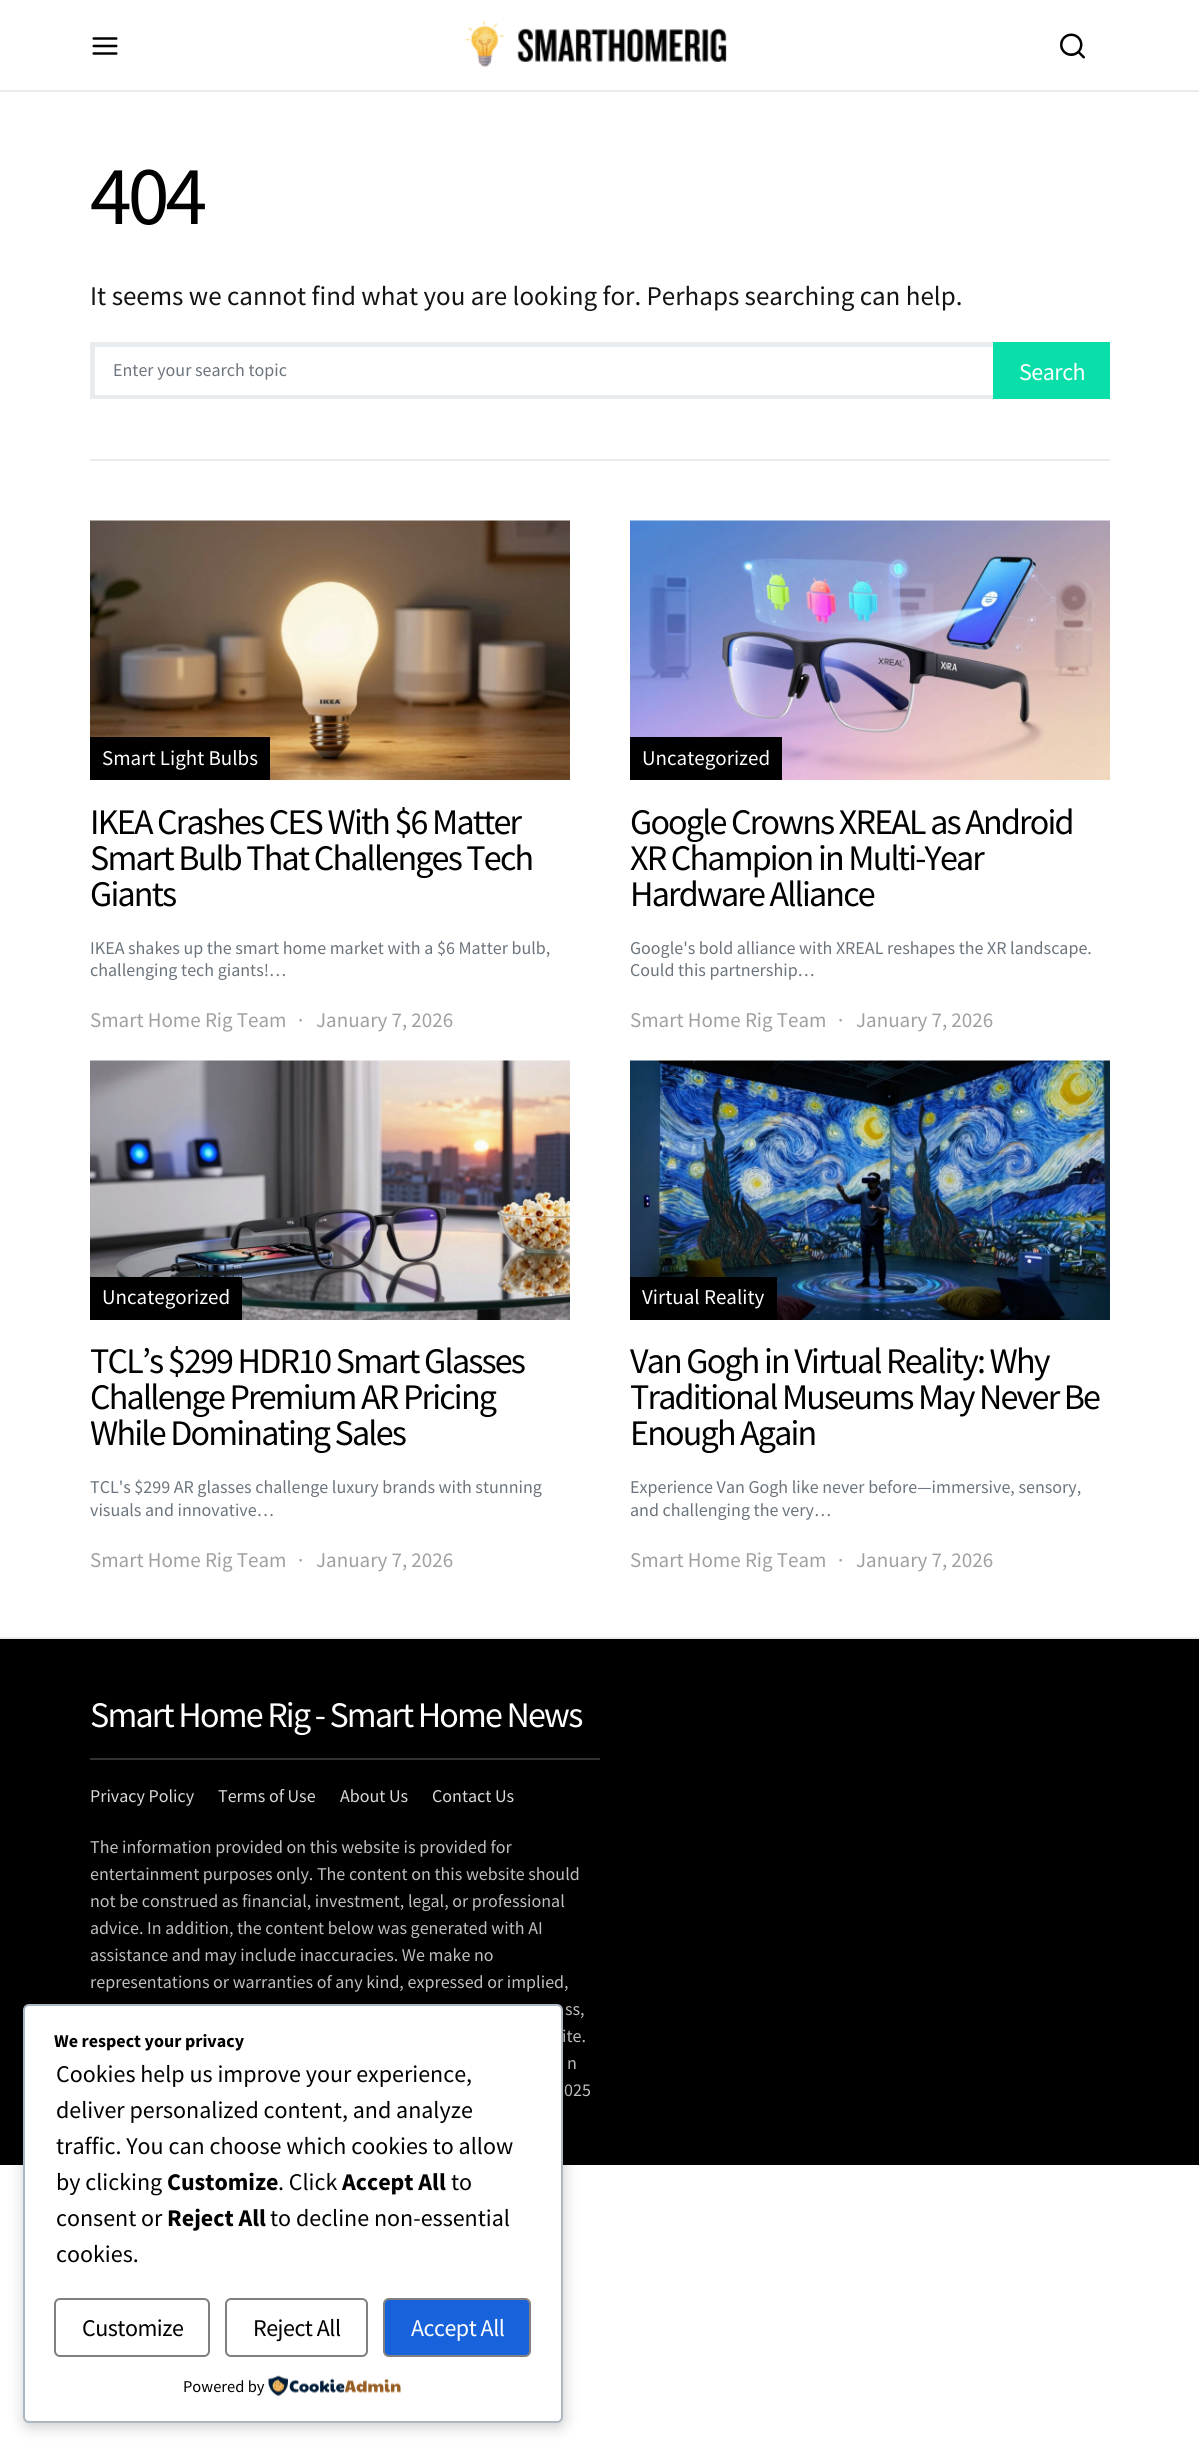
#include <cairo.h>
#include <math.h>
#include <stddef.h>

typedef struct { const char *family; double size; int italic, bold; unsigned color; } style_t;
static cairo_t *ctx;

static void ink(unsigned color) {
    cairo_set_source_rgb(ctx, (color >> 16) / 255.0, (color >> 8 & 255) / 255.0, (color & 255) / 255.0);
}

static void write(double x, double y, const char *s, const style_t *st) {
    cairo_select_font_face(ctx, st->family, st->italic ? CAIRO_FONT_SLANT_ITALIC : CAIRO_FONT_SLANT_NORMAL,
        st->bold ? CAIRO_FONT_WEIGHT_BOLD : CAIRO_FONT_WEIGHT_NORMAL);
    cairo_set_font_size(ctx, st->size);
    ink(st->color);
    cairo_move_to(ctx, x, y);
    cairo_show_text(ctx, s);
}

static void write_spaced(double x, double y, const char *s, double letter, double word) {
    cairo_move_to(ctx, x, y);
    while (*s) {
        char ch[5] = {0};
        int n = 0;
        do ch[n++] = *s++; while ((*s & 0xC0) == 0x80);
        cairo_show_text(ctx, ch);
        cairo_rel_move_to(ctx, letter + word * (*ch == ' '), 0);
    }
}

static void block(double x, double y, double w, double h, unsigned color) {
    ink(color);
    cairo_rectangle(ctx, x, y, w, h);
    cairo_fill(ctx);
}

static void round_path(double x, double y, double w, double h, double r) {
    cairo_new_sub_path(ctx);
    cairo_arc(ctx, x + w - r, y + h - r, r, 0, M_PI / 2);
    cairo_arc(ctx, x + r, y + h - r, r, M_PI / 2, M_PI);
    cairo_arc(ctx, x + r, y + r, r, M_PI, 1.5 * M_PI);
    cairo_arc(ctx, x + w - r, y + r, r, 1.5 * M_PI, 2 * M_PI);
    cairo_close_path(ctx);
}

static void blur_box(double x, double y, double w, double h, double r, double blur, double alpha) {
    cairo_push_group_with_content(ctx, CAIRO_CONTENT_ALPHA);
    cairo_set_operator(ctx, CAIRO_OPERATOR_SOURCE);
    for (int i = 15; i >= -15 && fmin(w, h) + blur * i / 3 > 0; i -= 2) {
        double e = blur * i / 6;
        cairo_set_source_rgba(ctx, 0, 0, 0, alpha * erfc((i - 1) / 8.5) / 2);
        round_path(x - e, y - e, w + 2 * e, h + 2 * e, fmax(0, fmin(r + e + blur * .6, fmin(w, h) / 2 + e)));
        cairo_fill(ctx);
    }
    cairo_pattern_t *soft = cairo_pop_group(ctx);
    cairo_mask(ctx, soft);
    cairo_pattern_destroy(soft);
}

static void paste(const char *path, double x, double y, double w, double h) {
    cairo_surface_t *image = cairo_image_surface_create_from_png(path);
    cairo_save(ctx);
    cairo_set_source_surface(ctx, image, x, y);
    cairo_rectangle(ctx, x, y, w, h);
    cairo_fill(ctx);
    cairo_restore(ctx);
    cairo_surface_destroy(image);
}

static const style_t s1 = {"Source Sans Pro", 27, 0, 0, 0x121416};
static const style_t s2 = {"Source Sans Pro", 18, 0, 0, 0x6c757d};
static const style_t s3 = {"Source Sans Pro", 21, 0, 0, 0xffffff};
static const style_t s4 = {"Source Sans Pro", 21, 0, 0, 0xa0a0a0};
static const style_t s5 = {"Source Sans Pro", 18, 0, 0, 0xd9d9d9};
static const style_t s6 = {"Source Sans Pro", 18, 0, 0, 0xbfbfbf};
static const style_t s7 = {"Source Sans Pro", 18, 0, 1, 0x000000};
static const style_t s8 = {"Source Sans Pro", 24, 0, 0, 0x000000};
static const style_t s9 = {"Source Sans Pro", 24, 0, 1, 0x000000};
static const style_t s10 = {"Source Sans Pro", 16.5, 0, 0, 0x000000};

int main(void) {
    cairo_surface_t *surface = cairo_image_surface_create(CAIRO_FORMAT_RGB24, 1199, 2452);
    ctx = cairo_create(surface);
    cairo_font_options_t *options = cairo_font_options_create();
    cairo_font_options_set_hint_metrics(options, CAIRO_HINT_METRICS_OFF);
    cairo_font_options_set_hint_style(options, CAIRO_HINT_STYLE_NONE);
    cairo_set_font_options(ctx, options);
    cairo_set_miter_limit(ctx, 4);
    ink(0xffffff);
    cairo_paint(ctx);
    block(0, 90, 1199, 2, 0xe9ecef);
    paste("pic1.png", 92, 37, 26, 18);
    paste("pic2.png", 465, 20, 262, 47);
    paste("pic3.png", 1060, 33, 25, 26);
    cairo_select_font_face(ctx, "Source Sans Pro", CAIRO_FONT_SLANT_NORMAL, CAIRO_FONT_WEIGHT_NORMAL);
    cairo_set_font_size(ctx, 84);
    ink(0x000000);
    write_spaced(90, 224, "404", -4, 0);
    write(90, 305, "It seems we cannot find what you are looking for. Perhaps searching can help.", &s1);
    block(90, 342, 903, 57, 0xe9ecef);
    block(95, 347, 898, 48, 0xffffff);
    write(113, 376, "Enter your search topic", &s2);
    block(993, 342, 117, 57, 0x0adea9);
    cairo_set_font_size(ctx, 24);
    ink(0xffffff);
    write_spaced(1019, 380, "Search", -0.5, 0);
    block(90, 459, 1020, 2, 0xe9ecef);
    paste("pic4.png", 90, 520, 480, 260);
    block(90, 737, 180, 43, 0x000000);
    write(102, 765, "Smart Light Bulbs", &s3);
    cairo_set_font_size(ctx, 36);
    ink(0x000000);
    write_spaced(90, 834, "IKEA Crashes CES With $6 Matter", -1.8, 0);
    write_spaced(90, 870, "Smart Bulb That Challenges Tech", -1.8, 0);
    write_spaced(90, 906, "Giants", -1.8, 0);
    write(90, 954, "IKEA shakes up the smart home market with a $6 Matter bulb,", &s2);
    write(90, 976, "challenging tech giants!…", &s2);
    write(90, 1027, "Smart Home Rig Team", &s4);
    write(298, 1027, "·", &s4);
    write(316, 1027, "January 7, 2026", &s4);
    paste("pic5.png", 630, 520, 480, 260);
    block(630, 737, 152, 43, 0x000000);
    write(642, 765, "Uncategorized", &s3);
    cairo_set_font_size(ctx, 36);
    ink(0x000000);
    write_spaced(630, 834, "Google Crowns XREAL as Android", -1.8, 0);
    write_spaced(630, 870, "XR Champion in Multi-Year", -1.8, 0);
    write_spaced(630, 906, "Hardware Alliance", -1.8, 0);
    write(630, 954, "Google's bold alliance with XREAL reshapes the XR landscape.", &s2);
    write(630, 976, "Could this partnership…", &s2);
    write(630, 1027, "Smart Home Rig Team", &s4);
    write(838, 1027, "·", &s4);
    write(856, 1027, "January 7, 2026", &s4);
    paste("pic6.png", 90, 1060, 480, 260);
    block(90, 1277, 152, 43, 0x000000);
    write(102, 1304, "Uncategorized", &s3);
    cairo_set_font_size(ctx, 36);
    ink(0x000000);
    write_spaced(90, 1373, "TCL’s $299 HDR10 Smart Glasses", -1.8, 0);
    write_spaced(90, 1409, "Challenge Premium AR Pricing", -1.8, 0);
    write_spaced(90, 1445, "While Dominating Sales", -1.8, 0);
    write(90, 1493, "TCL's $299 AR glasses challenge luxury brands with stunning", &s2);
    write(90, 1516, "visuals and innovative…", &s2);
    write(90, 1567, "Smart Home Rig Team", &s4);
    write(298, 1567, "·", &s4);
    write(316, 1567, "January 7, 2026", &s4);
    paste("pic7.png", 630, 1060, 480, 260);
    block(630, 1277, 147, 43, 0x000000);
    write(642, 1304, "Virtual Reality", &s3);
    cairo_set_font_size(ctx, 36);
    ink(0x000000);
    write_spaced(630, 1373, "Van Gogh in Virtual Reality: Why", -1.8, 0);
    write_spaced(630, 1409, "Traditional Museums May Never Be", -1.8, 0);
    write_spaced(630, 1445, "Enough Again", -1.8, 0);
    write(630, 1493, "Experience Van Gogh like never before—immersive, sensory,", &s2);
    write(630, 1516, "and challenging the very…", &s2);
    write(630, 1567, "Smart Home Rig Team", &s4);
    write(838, 1567, "·", &s4);
    write(856, 1567, "January 7, 2026", &s4);
    block(0, 1639, 1199, 526, 0x000000);
    block(0, 1637, 1199, 2, 0xe9ecef);
    cairo_set_font_size(ctx, 36);
    ink(0xffffff);
    write_spaced(90, 1727, "Smart Home Rig - Smart Home News", -1.8, 0);
    block(90, 1758, 510, 2, 0x333333);
    write(90, 1802, "Privacy Policy", &s5);
    write(218, 1802, "Terms of Use", &s5);
    write(340, 1802, "About Us", &s5);
    write(432, 1802, "Contact Us", &s5);
    write(90, 1853, "The information provided on this website is provided for", &s6);
    write(90, 1880, "entertainment purposes only. The content on this website should", &s6);
    write(90, 1907, "not be construed as financial, investment, legal, or professional", &s6);
    write(90, 1934, "advice. In addition, the content below was generated with AI", &s6);
    write(90, 1961, "assistance and may include inaccuracies. We make no", &s6);
    write(90, 1988, "representations or warranties of any kind, expressed or implied,", &s6);
    write(565, 2015, "ss,", &s6);
    write(562, 2042, "ite.", &s6);
    write(567, 2069, "n", &s6);
    write(564, 2096, "025", &s6);
    ink(0x000000);
    blur_box(24, 2009, 540, 418, 6, 7.5, 0.2);
    ink(0xffffff);
    round_path(24, 2005, 538, 417, 5);
    cairo_fill_preserve(ctx);
    ink(0xabb8c3);
    cairo_stroke(ctx);
    write(54, 2047, "We respect your privacy", &s7);
    write(56, 2082, "Cookies help us improve your experience,", &s8);
    write(56, 2118, "deliver personalized content, and analyze", &s8);
    write(56, 2154, "traffic. You can choose which cookies to allow", &s8);
    write(56, 2190, "by clicking", &s8);
    write(167, 2190, "Customize", &s9);
    write(278, 2190, ". Click", &s8);
    write(342, 2190, "Accept All", &s9);
    write(451, 2190, "to", &s8);
    write(56, 2226, "consent or", &s8);
    write(167, 2226, "Reject All", &s9);
    write(270, 2226, "to decline non-essential", &s8);
    write(56, 2262, "cookies.", &s8);
    round_path(55, 2299, 154, 57, 5);
    ink(0x808080);
    cairo_stroke(ctx);
    ink(0x000000);
    write_spaced(82, 2336, "Customize", -0.5, 0);
    round_path(226, 2299, 141, 57, 5);
    ink(0x808080);
    cairo_stroke(ctx);
    ink(0x000000);
    write_spaced(253, 2336, "Reject All", -0.5, 0);
    ink(0x1863dc);
    round_path(384, 2299, 146, 57, 5);
    cairo_fill_preserve(ctx);
    ink(0x808080);
    cairo_stroke(ctx);
    ink(0xffffff);
    write_spaced(411, 2336, "Accept All", -0.5, 0);
    write(183, 2392, "Powered by", &s10);
    paste("pic8.png", 268, 2375, 133, 22);
    cairo_surface_write_to_png(surface, "screenshot.png");
    cairo_font_options_destroy(options);
    cairo_destroy(ctx);
    cairo_surface_destroy(surface);
    return 0;
}
